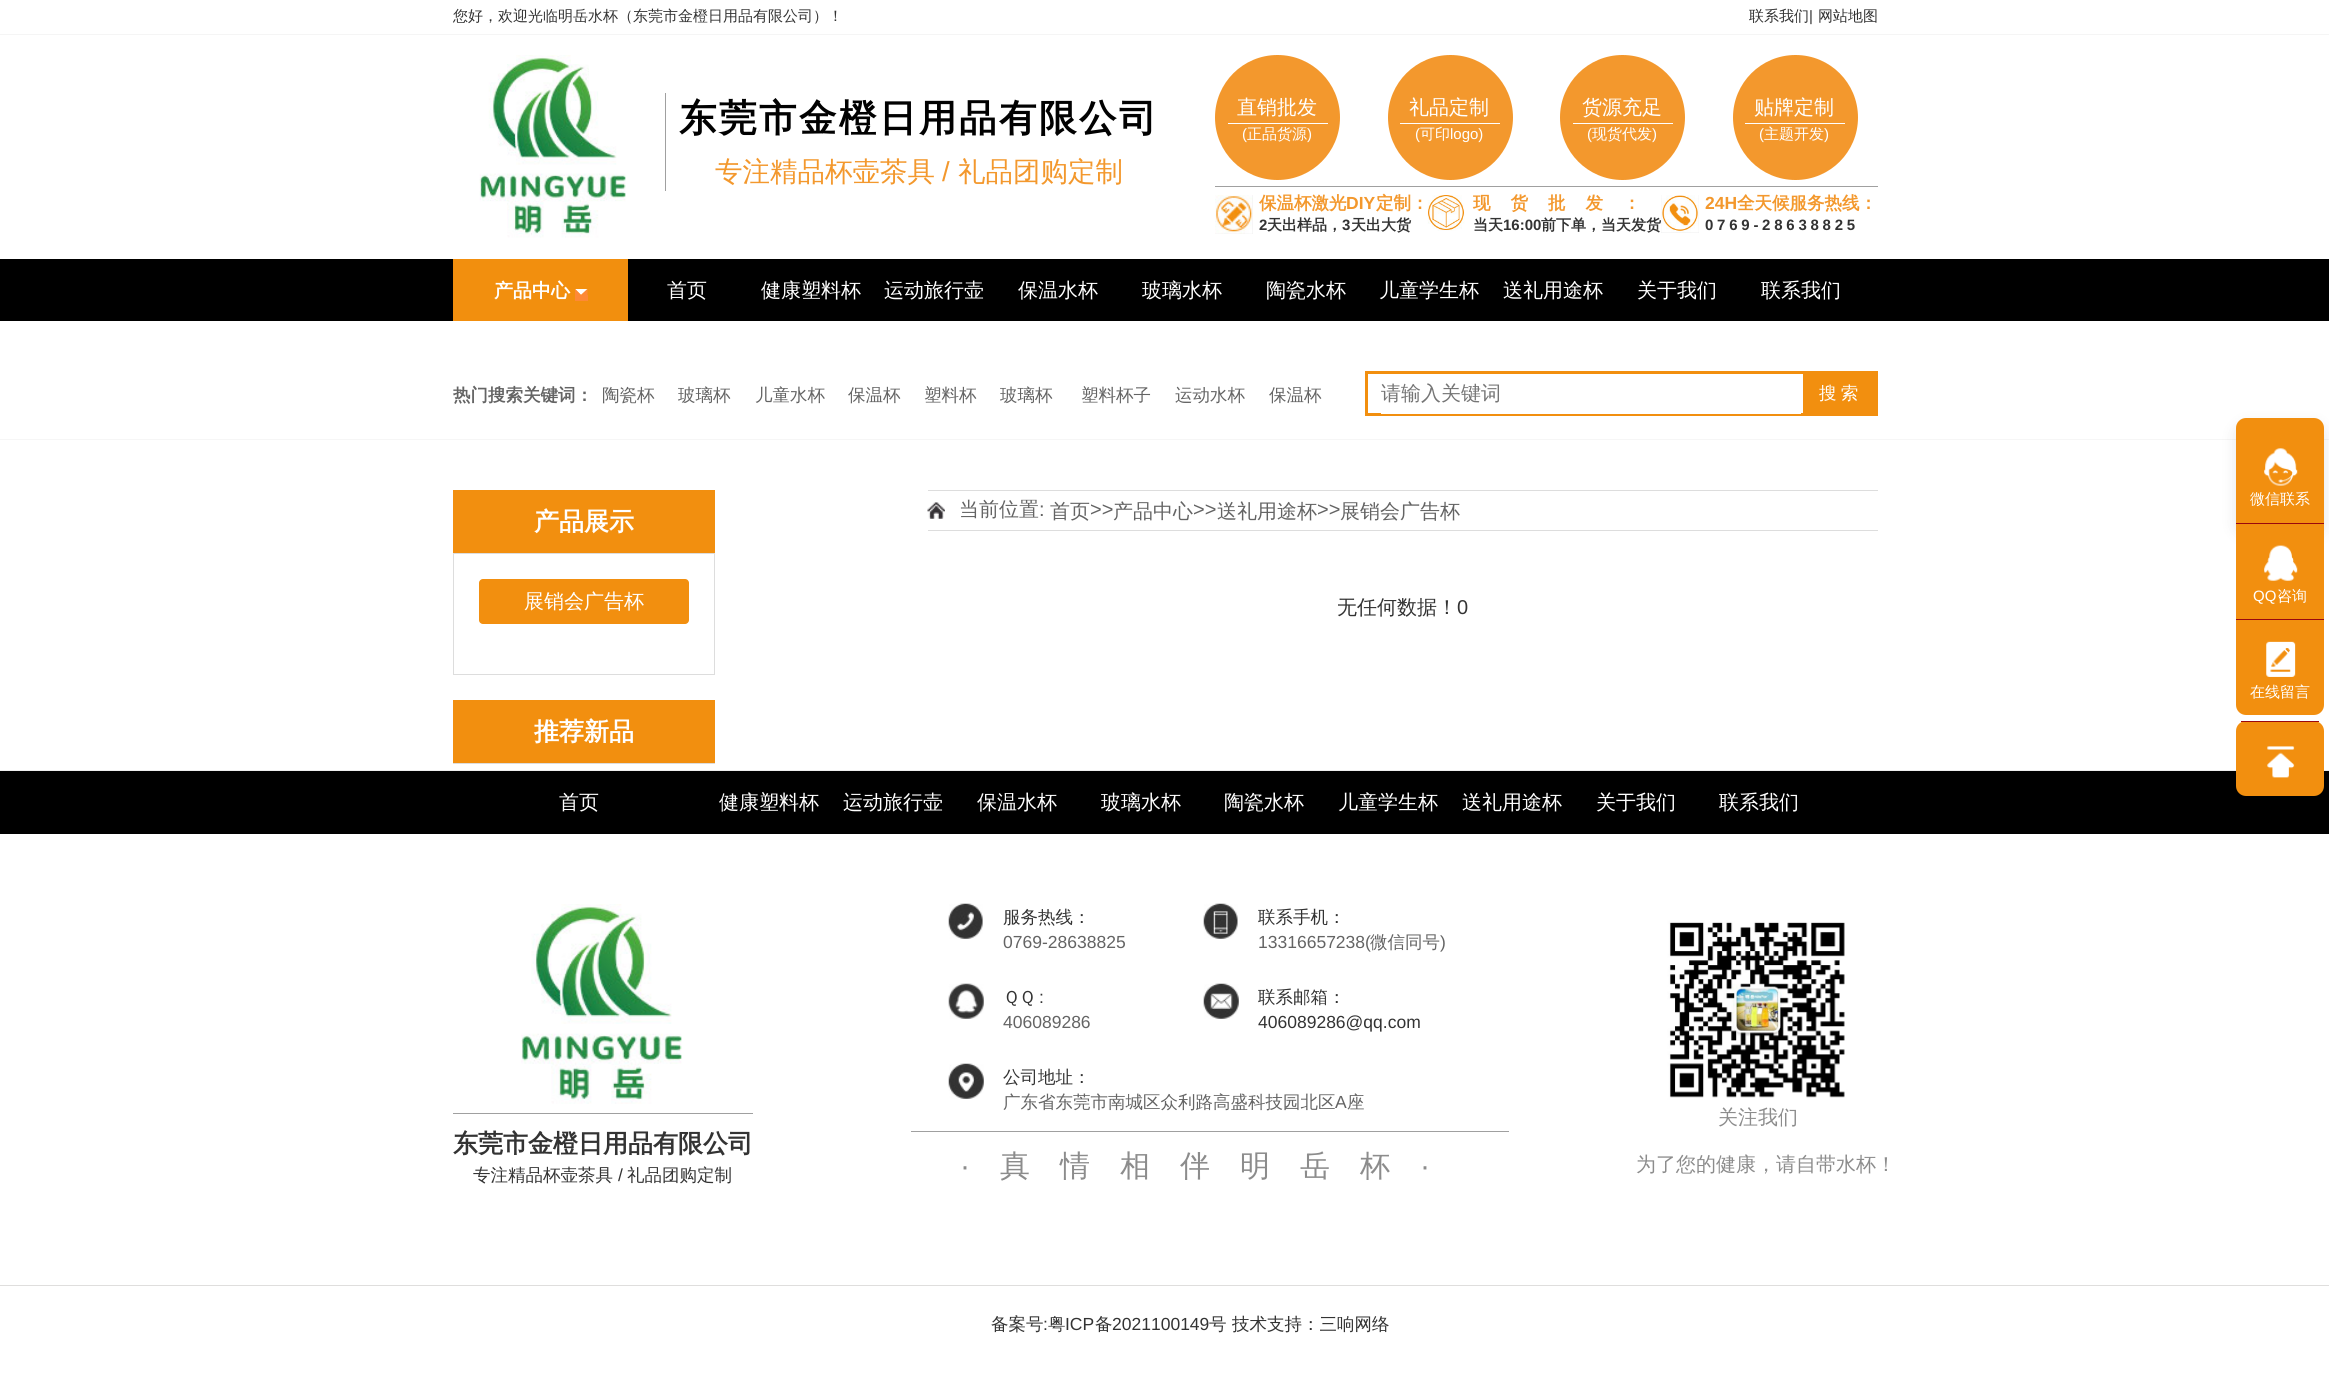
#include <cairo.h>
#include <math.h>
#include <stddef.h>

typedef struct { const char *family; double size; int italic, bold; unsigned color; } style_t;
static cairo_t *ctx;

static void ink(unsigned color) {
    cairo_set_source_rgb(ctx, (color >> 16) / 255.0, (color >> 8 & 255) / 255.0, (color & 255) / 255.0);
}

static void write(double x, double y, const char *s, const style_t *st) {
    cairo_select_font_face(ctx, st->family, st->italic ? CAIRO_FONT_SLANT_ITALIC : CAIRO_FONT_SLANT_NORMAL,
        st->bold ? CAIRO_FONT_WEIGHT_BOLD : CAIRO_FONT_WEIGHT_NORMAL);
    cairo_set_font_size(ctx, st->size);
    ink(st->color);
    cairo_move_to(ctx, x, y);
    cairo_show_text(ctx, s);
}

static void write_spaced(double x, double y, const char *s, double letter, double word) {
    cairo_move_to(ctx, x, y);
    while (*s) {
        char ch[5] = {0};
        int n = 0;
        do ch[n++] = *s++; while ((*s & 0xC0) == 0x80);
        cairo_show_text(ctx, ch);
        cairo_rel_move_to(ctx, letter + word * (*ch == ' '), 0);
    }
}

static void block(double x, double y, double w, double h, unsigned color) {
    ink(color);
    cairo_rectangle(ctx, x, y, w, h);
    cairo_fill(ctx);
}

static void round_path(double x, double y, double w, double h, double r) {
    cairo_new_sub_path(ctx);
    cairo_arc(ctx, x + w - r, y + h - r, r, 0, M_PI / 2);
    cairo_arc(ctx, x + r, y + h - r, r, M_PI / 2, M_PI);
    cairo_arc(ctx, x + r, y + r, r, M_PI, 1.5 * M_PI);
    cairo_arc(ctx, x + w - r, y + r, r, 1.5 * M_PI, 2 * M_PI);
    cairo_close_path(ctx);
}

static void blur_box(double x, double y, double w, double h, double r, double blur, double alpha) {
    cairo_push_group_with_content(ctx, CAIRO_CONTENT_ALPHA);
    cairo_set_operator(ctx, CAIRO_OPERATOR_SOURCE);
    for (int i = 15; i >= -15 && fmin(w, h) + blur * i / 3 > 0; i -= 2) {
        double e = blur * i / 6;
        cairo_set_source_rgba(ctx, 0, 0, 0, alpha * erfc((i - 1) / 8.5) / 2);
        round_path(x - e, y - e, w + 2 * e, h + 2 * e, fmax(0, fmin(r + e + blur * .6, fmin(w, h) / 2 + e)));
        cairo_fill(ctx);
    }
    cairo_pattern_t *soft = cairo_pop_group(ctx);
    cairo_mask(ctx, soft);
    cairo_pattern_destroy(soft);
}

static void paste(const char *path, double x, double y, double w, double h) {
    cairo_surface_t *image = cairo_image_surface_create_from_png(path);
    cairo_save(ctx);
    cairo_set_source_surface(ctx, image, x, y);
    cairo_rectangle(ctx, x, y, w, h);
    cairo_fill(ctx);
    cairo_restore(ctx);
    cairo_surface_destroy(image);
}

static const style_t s1 = {"WenQuanYi Zen Hei Medium", 15, 0, 0, 0x333333};
static const style_t s2 = {"Liberation Sans", 15, 0, 0, 0x333333};
static const style_t s3 = {"WenQuanYi Zen Hei Medium", 27.5, 0, 0, 0xf3982d};
static const style_t s4 = {"Liberation Sans", 27.5, 0, 0, 0xf3982d};
static const style_t s5 = {"WenQuanYi Zen Hei Medium", 20, 0, 0, 0xffffff};
static const style_t s6 = {"Liberation Sans", 15, 0, 0, 0xffffff};
static const style_t s7 = {"WenQuanYi Zen Hei Medium", 15, 0, 0, 0xffffff};
static const style_t s8 = {"WenQuanYi Zen Hei", 17.5, 0, 1, 0xf3982d};
static const style_t s9 = {"Liberation Sans", 17.5, 0, 1, 0xf3982d};
static const style_t s10 = {"Liberation Sans", 15, 0, 1, 0x333333};
static const style_t s11 = {"WenQuanYi Zen Hei", 15, 0, 1, 0x333333};
static const style_t s12 = {"WenQuanYi Zen Hei", 19, 0, 1, 0xffffff};
static const style_t s13 = {"WenQuanYi Zen Hei", 17.5, 0, 1, 0x646464};
static const style_t s14 = {"WenQuanYi Zen Hei Medium", 17.5, 0, 0, 0x646464};
static const style_t s15 = {"WenQuanYi Zen Hei Medium", 20, 0, 0, 0x757575};
static const style_t s16 = {"WenQuanYi Zen Hei", 25, 0, 1, 0xffffff};
static const style_t s17 = {"WenQuanYi Zen Hei Medium", 20, 0, 0, 0x646464};
static const style_t s18 = {"Liberation Sans", 20, 0, 0, 0x646464};
static const style_t s19 = {"WenQuanYi Zen Hei Medium", 20, 0, 0, 0x333333};
static const style_t s20 = {"Liberation Sans", 20, 0, 0, 0x333333};
static const style_t s21 = {"WenQuanYi Zen Hei Medium", 17.5, 0, 0, 0x333333};
static const style_t s22 = {"Liberation Sans", 17.5, 0, 0, 0x646464};
static const style_t s23 = {"Liberation Sans", 17.5, 0, 0, 0x333333};
static const style_t s24 = {"WenQuanYi Zen Hei Medium", 20, 0, 0, 0x8c8c8c};
static const style_t s25 = {"WenQuanYi Zen Hei", 25, 0, 1, 0x333333};

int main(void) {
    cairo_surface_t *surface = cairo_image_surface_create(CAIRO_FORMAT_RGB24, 2329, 1390);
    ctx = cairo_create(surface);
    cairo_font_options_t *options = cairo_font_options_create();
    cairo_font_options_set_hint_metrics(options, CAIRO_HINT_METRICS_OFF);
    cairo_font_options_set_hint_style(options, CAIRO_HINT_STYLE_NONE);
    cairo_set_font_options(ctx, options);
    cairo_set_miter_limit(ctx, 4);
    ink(0xffffff);
    cairo_paint(ctx);
    block(0, 770, 2329, 1, 0xeeeeee);
    block(0, 34, 2329, 1, 0xf5f5f5);
    write(453, 21, "您好，欢迎光临明岳水杯（东莞市金橙日用品有限公司）！", &s1);
    write(1749, 21, "联系我们", &s1);
    write(1809, 21, "|", &s2);
    write(1818, 21, "网站地图", &s1);
    paste("pic1.png", 479, 55, 147, 183);
    block(665, 93, 1, 98, 0xa0a0a0);
    cairo_select_font_face(ctx, "WenQuanYi Zen Hei", CAIRO_FONT_SLANT_NORMAL, CAIRO_FONT_WEIGHT_BOLD);
    cairo_set_font_size(ctx, 37.5);
    ink(0x010101);
    write_spaced(679, 131, "东莞市金橙日用品有限公司", 2.5, 0);
    write(715, 181, "专注精品杯壶茶具", &s3);
    write(942, 181, "/", &s4);
    write(958, 181, "礼品团购定制", &s3);
    block(1215, 186, 663, 1, 0xa0a0a0);
    ink(0xf3982d);
    cairo_new_path(ctx);
    cairo_arc(ctx, 1277.5, 117.5, 62.5, 0, 2 * M_PI);
    cairo_fill(ctx);
    block(1228, 123, 100, 1, 0xffffff);
    write(1237, 114, "直销批发", &s5);
    write(1242, 139, "(", &s6);
    write(1247, 139, "正品货源", &s7);
    write(1307, 139, ")", &s6);
    ink(0xf3982d);
    cairo_new_path(ctx);
    cairo_arc(ctx, 1450.5, 117.5, 62.5, 0, 2 * M_PI);
    cairo_fill(ctx);
    block(1400, 123, 100, 1, 0xffffff);
    write(1409, 114, "礼品定制", &s5);
    write(1415, 139, "(", &s6);
    write(1420, 139, "可印", &s7);
    write(1450, 139, "logo)", &s6);
    ink(0xf3982d);
    cairo_new_path(ctx);
    cairo_arc(ctx, 1622.5, 117.5, 62.5, 0, 2 * M_PI);
    cairo_fill(ctx);
    block(1573, 123, 100, 1, 0xffffff);
    write(1582, 114, "货源充足", &s5);
    write(1587, 139, "(", &s6);
    write(1592, 139, "现货代发", &s7);
    write(1652, 139, ")", &s6);
    ink(0xf3982d);
    cairo_new_path(ctx);
    cairo_arc(ctx, 1795.5, 117.5, 62.5, 0, 2 * M_PI);
    cairo_fill(ctx);
    block(1745, 123, 100, 1, 0xffffff);
    write(1754, 114, "贴牌定制", &s5);
    write(1759, 139, "(", &s6);
    write(1764, 139, "主题开发", &s7);
    write(1824, 139, ")", &s6);
    block(1215, 195, 38, 39, 0xeeeeee);
    paste("pic2.png", 1215, 195, 38, 39);
    write(1259, 209, "保温杯激光", &s8);
    write(1346, 209, "DIY", &s9);
    write(1376, 209, "定制：", &s8);
    write(1259, 230, "2", &s10);
    write(1267, 230, "天出样品，", &s11);
    write(1342, 230, "3", &s10);
    write(1351, 230, "天出大货", &s11);
    paste("pic3.png", 1427, 195, 38, 36);
    cairo_set_font_size(ctx, 17.5);
    ink(0xf3982d);
    write_spaced(1473, 209, "现货批发：", 20, 0);
    write(1473, 230, "当天", &s11);
    write(1503, 230, "16:00", &s10);
    write(1541, 230, "前下单，当天发货", &s11);
    block(1661, 195, 38, 38, 0xeeeeee);
    paste("pic4.png", 1661, 195, 38, 38);
    write(1705, 209, "24H", &s9);
    write(1737, 209, "全天候服务热线：", &s8);
    cairo_select_font_face(ctx, "Liberation Sans", CAIRO_FONT_SLANT_NORMAL, CAIRO_FONT_WEIGHT_BOLD);
    cairo_set_font_size(ctx, 15);
    ink(0x333333);
    write_spaced(1705, 230, "0769-28638825", 3.75, 0);
    block(0, 259, 2329, 62, 0x000000);
    block(453, 259, 175, 62, 0xf28f0e);
    write(494, 297, "产品中心", &s12);
    cairo_new_path(ctx);
    cairo_move_to(ctx, 575, 289);
    cairo_line_to(ctx, 587.5, 289);
    cairo_line_to(ctx, 581, 295);
    cairo_close_path(ctx);
    cairo_fill(ctx);
    ink(0xfe8936);
    cairo_new_path(ctx);
    cairo_move_to(ctx, 587.5, 289);
    cairo_line_to(ctx, 587.5, 301);
    cairo_line_to(ctx, 581, 295);
    cairo_close_path(ctx);
    cairo_fill(ctx);
    block(575, 295, 13, 6, 0xfe8936);
    cairo_new_path(ctx);
    cairo_move_to(ctx, 575, 301);
    cairo_line_to(ctx, 575, 289);
    cairo_line_to(ctx, 581, 295);
    cairo_close_path(ctx);
    cairo_fill(ctx);
    write(667, 297, "首页", &s5);
    write(761, 297, "健康塑料杯", &s5);
    write(884, 297, "运动旅行壶", &s5);
    write(1018, 297, "保温水杯", &s5);
    write(1142, 297, "玻璃水杯", &s5);
    write(1266, 297, "陶瓷水杯", &s5);
    write(1379, 297, "儿童学生杯", &s5);
    write(1503, 297, "送礼用途杯", &s5);
    write(1637, 297, "关于我们", &s5);
    write(1761, 297, "联系我们", &s5);
    block(0, 439, 2329, 1, 0xf6f6f6);
    write(453, 401, "热门搜索关键词：", &s13);
    write(602, 401, "陶瓷杯", &s14);
    write(678, 401, "玻璃杯", &s14);
    write(755, 401, "儿童水杯", &s14);
    write(848, 401, "保温杯", &s14);
    write(924, 401, "塑料杯", &s14);
    write(1000, 401, "玻璃杯", &s14);
    write(1081, 401, "塑料杯子", &s14);
    write(1175, 401, "运动水杯", &s14);
    write(1269, 401, "保温杯", &s14);
    cairo_rectangle(ctx, 1366.5, 372.5, 510, 42);
    ink(0xf28f0f);
    cairo_set_line_width(ctx, 3);
    cairo_stroke(ctx);
    block(1381, 413, 420, 1, 0xffffff);
    write(1381, 400, "请输入关键词", &s15);
    block(1803, 374, 72, 39, 0xf28f0f);
    cairo_set_font_size(ctx, 17.5);
    ink(0xffffff);
    write_spaced(1819, 399, "搜 索", 0, -1);
    block(453, 490, 262, 63, 0xf28f0f);
    write(534, 530, "产品展示", &s16);
    cairo_rectangle(ctx, 453.5, 553.5, 261, 121);
    ink(0xdddddd);
    cairo_set_line_width(ctx, 1);
    cairo_stroke(ctx);
    ink(0xf28f0f);
    round_path(479, 579, 210, 45, 4);
    cairo_fill(ctx);
    write(524, 608, "展销会广告杯", &s5);
    block(453, 763, 262, 1, 0xdddddd);
    block(453, 700, 262, 63, 0xf28f0f);
    write(534, 740, "推荐新品", &s16);
    paste("pic5.png", 927, 502, 18, 17);
    block(928, 490, 950, 1, 0xdddddd);
    block(928, 530, 950, 1, 0xdddddd);
    write(959, 516, "当前位置", &s17);
    write(1039, 516, ":", &s18);
    write(1050, 518, "首页", &s17);
    write(1090, 516, ">>", &s18);
    write(1113, 518, "产品中心", &s17);
    write(1193, 516, ">>", &s18);
    write(1217, 518, "送礼用途杯", &s17);
    write(1317, 516, ">>", &s18);
    write(1340, 518, "展销会广告杯", &s17);
    write(1337, 614, "无任何数据！", &s19);
    write(1457, 614, "0", &s20);
    ink(0x000000);
    blur_box(2236, 425, 88, 110, 10, 7.5, 0.1);
    ink(0xf28f0f);
    round_path(2236, 418, 88, 110, 10);
    cairo_fill(ctx);
    block(2236, 518, 88, 5, 0xf28f0f);
    paste("pic6.png", 2264, 448, 34, 38);
    write(2250, 504, "微信联系", &s7);
    block(2236, 524, 88, 95, 0xf28f0f);
    block(2236, 523, 88, 1, 0x9a070d);
    paste("pic7.png", 2264, 545, 34, 36);
    write(2253, 601, "QQ", &s6);
    write(2277, 601, "咨询", &s7);
    ink(0xf28f0f);
    cairo_new_path(ctx);
    cairo_move_to(ctx, 2236, 619);
    cairo_line_to(ctx, 2324, 619);
    cairo_line_to(ctx, 2324, 705);
    cairo_curve_to(ctx, 2324, 710.5, 2319.5, 715, 2314, 715);
    cairo_line_to(ctx, 2246, 715);
    cairo_curve_to(ctx, 2240.5, 715, 2236, 710.5, 2236, 705);
    cairo_close_path(ctx);
    cairo_fill(ctx);
    block(2236, 619, 88, 1, 0x9a070d);
    paste("pic8.png", 2266, 641, 30, 36);
    write(2250, 697, "在线留言", &s7);
    block(0, 771, 2329, 63, 0x000000);
    ink(0xf28f0f);
    round_path(2236, 721, 88, 75, 10);
    cairo_fill(ctx);
    block(2241, 721, 78, 1, 0x9a070d);
    paste("pic9.png", 2267, 746, 28, 32);
    write(559, 809, "首页", &s5);
    write(719, 809, "健康塑料杯", &s5);
    write(843, 809, "运动旅行壶", &s5);
    write(977, 809, "保温水杯", &s5);
    write(1101, 809, "玻璃水杯", &s5);
    write(1224, 809, "陶瓷水杯", &s5);
    write(1338, 809, "儿童学生杯", &s5);
    write(1462, 809, "送礼用途杯", &s5);
    write(1596, 809, "关于我们", &s5);
    write(1719, 809, "联系我们", &s5);
    block(911, 1131, 598, 1, 0xa0a0a0);
    paste("pic10.png", 948, 903, 35, 36);
    write(1003, 923, "服务热线：", &s21);
    write(1003, 948, "0769-28638825", &s22);
    paste("pic11.png", 1203, 903, 35, 36);
    write(1258, 923, "联系手机：", &s21);
    write(1258, 948, "13316657238(", &s22);
    write(1370, 948, "微信同号", &s14);
    write(1440, 948, ")", &s22);
    paste("pic12.png", 948, 983, 36, 36);
    write(1003, 1003, "ＱＱ", &s21);
    write(1039, 1003, ":", &s23);
    write(1003, 1028, "406089286", &s22);
    paste("pic13.png", 1203, 983, 36, 36);
    write(1258, 1003, "联系邮箱：", &s21);
    write(1258, 1028, "406089286@qq.com", &s23);
    paste("pic14.png", 948, 1063, 36, 36);
    write(1003, 1083, "公司地址：", &s21);
    write(1003, 1108, "广东省东莞市南城区众利路高盛科技园北区", &s14);
    write(1335, 1108, "A", &s22);
    write(1347, 1108, "座", &s14);
    cairo_select_font_face(ctx, "Liberation Sans", CAIRO_FONT_SLANT_NORMAL, CAIRO_FONT_WEIGHT_NORMAL);
    cairo_set_font_size(ctx, 30);
    ink(0x8c8c8c);
    write_spaced(960, 1176, "·", 30, 0);
    cairo_select_font_face(ctx, "WenQuanYi Zen Hei Medium", CAIRO_FONT_SLANT_NORMAL, CAIRO_FONT_WEIGHT_NORMAL);
    write_spaced(1000, 1176, "真情相伴明岳杯", 30, 0);
    cairo_select_font_face(ctx, "Liberation Sans", CAIRO_FONT_SLANT_NORMAL, CAIRO_FONT_WEIGHT_NORMAL);
    write_spaced(1420, 1176, "·", 30, 0);
    paste("pic15.png", 1664, 916, 187, 188);
    write(1718, 1124, "关注我们", &s24);
    paste("pic16.png", 521, 904, 161, 200);
    block(453, 1113, 300, 1, 0xa0a0a0);
    write(453, 1152, "东莞市金橙日用品有限公司", &s25);
    write(473, 1181, "专注精品杯壶茶具", &s21);
    write(618, 1181, "/", &s23);
    write(627, 1181, "礼品团购定制", &s21);
    write(1636, 1171, "为了您的健康，请自带水杯！", &s24);
    block(0, 1285, 2329, 1, 0xdfdedd);
    write(991, 1330, "备案号", &s21);
    write(1043, 1330, ":", &s23);
    write(1048, 1330, "粤", &s21);
    write(1065, 1330, "ICP", &s23);
    write(1095, 1330, "备", &s21);
    write(1112, 1330, "2021100149", &s23);
    write(1209, 1330, "号", &s21);
    write(1232, 1330, "技术支持：三响网络", &s21);
    cairo_surface_write_to_png(surface, "screenshot.png");
    cairo_font_options_destroy(options);
    cairo_destroy(ctx);
    cairo_surface_destroy(surface);
    return 0;
}
